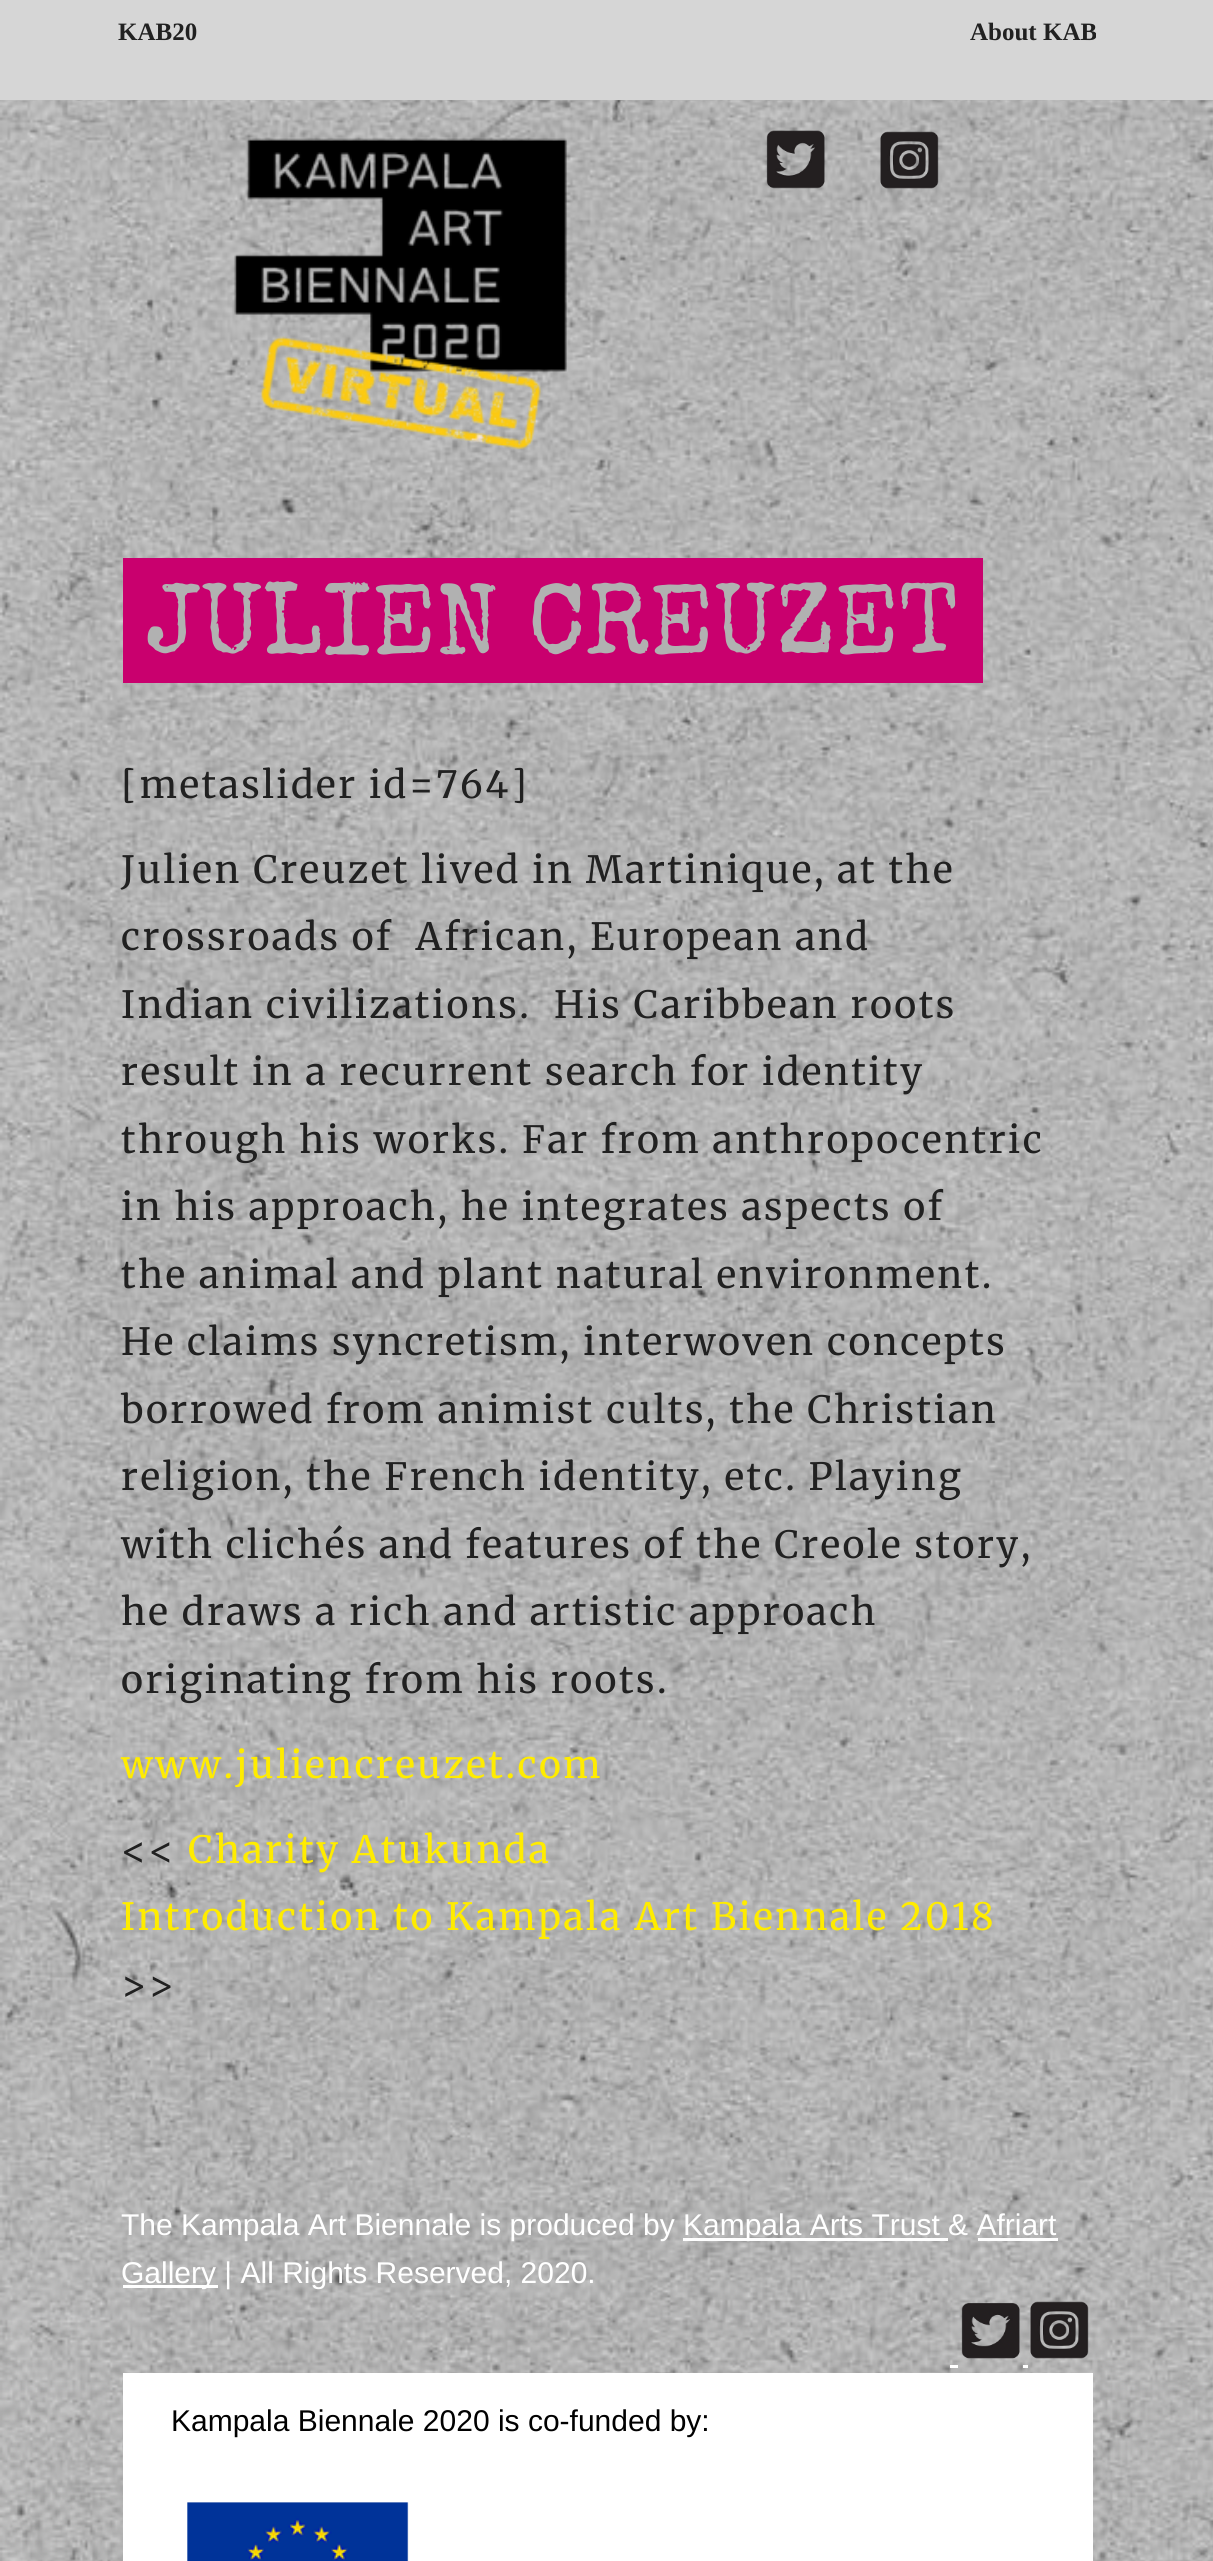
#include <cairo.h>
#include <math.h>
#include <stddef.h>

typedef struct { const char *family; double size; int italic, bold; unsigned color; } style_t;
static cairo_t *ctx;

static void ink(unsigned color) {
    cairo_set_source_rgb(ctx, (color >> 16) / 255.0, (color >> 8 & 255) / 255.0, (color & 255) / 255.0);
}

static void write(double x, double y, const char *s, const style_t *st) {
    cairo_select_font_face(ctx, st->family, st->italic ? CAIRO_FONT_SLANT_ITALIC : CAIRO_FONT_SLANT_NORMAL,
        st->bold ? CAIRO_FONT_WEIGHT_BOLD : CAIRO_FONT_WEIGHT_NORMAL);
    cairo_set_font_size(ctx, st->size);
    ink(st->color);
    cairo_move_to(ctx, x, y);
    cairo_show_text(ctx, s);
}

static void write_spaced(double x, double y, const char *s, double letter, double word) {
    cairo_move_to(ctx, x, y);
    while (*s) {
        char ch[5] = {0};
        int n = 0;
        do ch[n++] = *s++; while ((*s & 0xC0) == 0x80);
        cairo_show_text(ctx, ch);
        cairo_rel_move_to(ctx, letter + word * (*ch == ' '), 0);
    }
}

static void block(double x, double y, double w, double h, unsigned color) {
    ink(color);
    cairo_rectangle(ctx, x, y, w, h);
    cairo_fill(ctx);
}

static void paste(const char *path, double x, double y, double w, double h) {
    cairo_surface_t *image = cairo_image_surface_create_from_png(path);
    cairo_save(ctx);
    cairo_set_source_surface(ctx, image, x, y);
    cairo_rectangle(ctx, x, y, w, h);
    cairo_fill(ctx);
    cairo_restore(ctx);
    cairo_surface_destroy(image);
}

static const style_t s1 = {"Liberation Serif", 25, 0, 1, 0x212121};
static const style_t s2 = {"Liberation Sans", 30, 0, 0, 0xffffff};
static const style_t s3 = {"Liberation Sans", 30, 0, 0, 0x000000};
static const style_t s4 = {"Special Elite", 100, 0, 0, 0xb1b1b1};

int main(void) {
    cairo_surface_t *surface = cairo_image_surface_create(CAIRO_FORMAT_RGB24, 1213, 2561);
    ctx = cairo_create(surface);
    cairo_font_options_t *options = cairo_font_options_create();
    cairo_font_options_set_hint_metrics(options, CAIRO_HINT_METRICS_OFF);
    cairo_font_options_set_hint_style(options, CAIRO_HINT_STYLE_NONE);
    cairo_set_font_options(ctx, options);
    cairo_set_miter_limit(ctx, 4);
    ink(0xffffff);
    cairo_paint(ctx);
    paste("pic1.png", 0, 100, 1213, 2461);
    block(0, 0, 1213, 100, 0xd6d6d6);
    write(118, 40, "KAB20", &s1);
    write(970, 40, "About KAB", &s1);
    write(121, 2235, "The Kampala Art Biennale is produced by", &s2);
    block(683, 2238, 265, 3, 0xffffff);
    write(683, 2235, "Kampala Arts Trust & Afriart", &s2);
    block(978, 2238, 80, 3, 0xffffff);
    block(123, 2285, 95, 3, 0xffffff);
    write(121, 2283, "Gallery | All Rights Reserved, 2020.", &s2);
    paste("pic2.png", 961, 2303, 59, 56);
    paste("pic3.png", 1030, 2301, 59, 58);
    block(950, 2365, 8, 3, 0xffffff);
    block(1023, 2365, 5, 3, 0xffffff);
    block(123, 2373, 970, 188, 0xffffff);
    write(171, 2431, "Kampala Biennale 2020 is co-funded by:", &s3);
    paste("pic4.png", 187, 2502, 222, 59);
    paste("pic5.png", 234, 138, 333, 312);
    paste("pic6.png", 766, 130, 59, 59);
    paste("pic7.png", 880, 131, 59, 58);
    block(123, 558, 860, 125, 0xc9006e);
    write(146, 653, "JULIEN CREUZET", &s4);
    cairo_select_font_face(ctx, "Merriweather Light", CAIRO_FONT_SLANT_NORMAL, CAIRO_FONT_WEIGHT_NORMAL);
    cairo_set_font_size(ctx, 37.5);
    ink(0x212121);
    write_spaced(121, 798, "[metaslider id=764]", 2.5, 0);
    write_spaced(121, 883, "Julien Creuzet lived in Martinique, at the", 2.5, 0);
    write_spaced(121, 950, "crossroads of  African, European and", 2.5, 0);
    write_spaced(121, 1018, "Indian civilizations.  His Caribbean roots", 2.5, 0);
    write_spaced(121, 1085, "result in a recurrent search for identity", 2.5, 0);
    write_spaced(121, 1153, "through his works. Far from anthropocentric", 2.5, 0);
    write_spaced(121, 1220, "in his approach, he integrates aspects of", 2.5, 0);
    write_spaced(121, 1288, "the animal and plant natural environment.", 2.5, 0);
    write_spaced(121, 1355, "He claims syncretism, interwoven concepts", 2.5, 0);
    write_spaced(121, 1423, "borrowed from animist cults, the Christian", 2.5, 0);
    write_spaced(121, 1490, "religion, the French identity, etc. Playing", 2.5, 0);
    write_spaced(121, 1558, "with clichés and features of the Creole story,", 2.5, 0);
    write_spaced(121, 1625, "he draws a rich and artistic approach", 2.5, 0);
    write_spaced(121, 1693, "originating from his roots.", 2.5, 0);
    ink(0xffec00);
    write_spaced(121, 1778, "www.juliencreuzet.com", 2.5, 0);
    ink(0x212121);
    write_spaced(121, 1863, "<<", 2.5, 0);
    ink(0xffec00);
    write_spaced(188, 1863, "Charity Atukunda", 2.5, 0);
    write_spaced(121, 1930, "Introduction to Kampala Art Biennale 2018", 2.5, 0);
    ink(0x212121);
    write_spaced(121, 1998, ">>", 2.5, 0);
    cairo_surface_write_to_png(surface, "screenshot.png");
    cairo_font_options_destroy(options);
    cairo_destroy(ctx);
    cairo_surface_destroy(surface);
    return 0;
}
